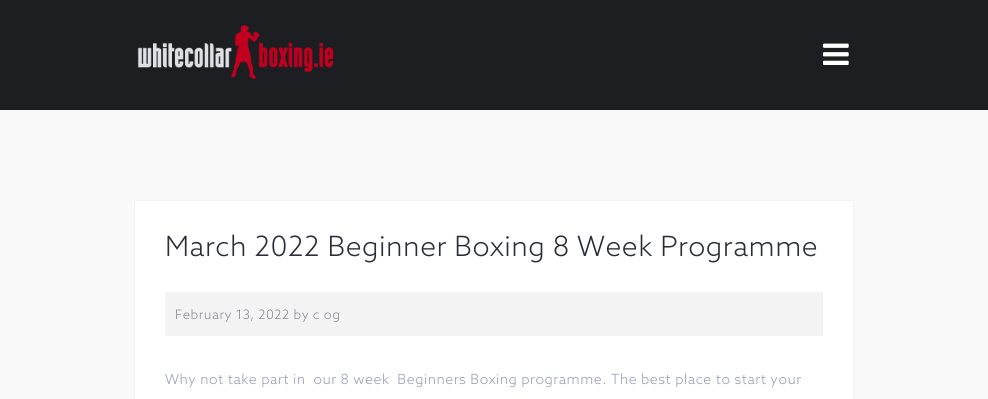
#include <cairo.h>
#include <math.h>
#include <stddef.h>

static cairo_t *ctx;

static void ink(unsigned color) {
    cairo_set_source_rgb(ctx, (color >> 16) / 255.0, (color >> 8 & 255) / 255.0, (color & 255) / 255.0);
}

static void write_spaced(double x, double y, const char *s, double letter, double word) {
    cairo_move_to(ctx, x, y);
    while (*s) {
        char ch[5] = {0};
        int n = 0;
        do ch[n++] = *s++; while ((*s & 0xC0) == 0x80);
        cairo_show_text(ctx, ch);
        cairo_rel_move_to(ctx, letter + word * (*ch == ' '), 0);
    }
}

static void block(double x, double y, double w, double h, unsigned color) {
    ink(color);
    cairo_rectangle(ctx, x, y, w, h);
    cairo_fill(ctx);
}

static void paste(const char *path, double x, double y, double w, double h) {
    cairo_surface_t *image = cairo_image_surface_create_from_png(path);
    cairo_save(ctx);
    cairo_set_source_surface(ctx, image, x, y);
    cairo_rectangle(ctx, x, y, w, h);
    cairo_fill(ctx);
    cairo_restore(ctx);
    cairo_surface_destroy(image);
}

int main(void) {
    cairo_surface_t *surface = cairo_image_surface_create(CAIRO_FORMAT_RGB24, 988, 399);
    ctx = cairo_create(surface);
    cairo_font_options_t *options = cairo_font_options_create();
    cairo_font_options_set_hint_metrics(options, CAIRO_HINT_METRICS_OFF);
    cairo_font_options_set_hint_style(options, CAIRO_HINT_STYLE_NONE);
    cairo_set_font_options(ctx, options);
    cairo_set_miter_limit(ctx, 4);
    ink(0xf9f9f9);
    cairo_paint(ctx);
    block(0, 0, 988, 110, 0x1c1e21);
    paste("pic1.png", 137, 25, 197, 54);
    paste("pic2.png", 823, 43, 26, 22);
    ink(0xffffff);
    cairo_rectangle(ctx, 134.5, 200.5, 719, 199);
    cairo_fill_preserve(ctx);
    ink(0xf3f3f3);
    cairo_set_line_width(ctx, 1);
    cairo_stroke(ctx);
    cairo_select_font_face(ctx, "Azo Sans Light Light", CAIRO_FONT_SLANT_NORMAL, CAIRO_FONT_WEIGHT_NORMAL);
    cairo_set_font_size(ctx, 28);
    ink(0x2b2d3a);
    write_spaced(165, 256, "March 2022 Beginner Boxing 8 Week Programme", 0.5, 0);
    block(165, 292, 658, 44, 0xf3f3f3);
    cairo_set_font_size(ctx, 13);
    ink(0x838592);
    write_spaced(175, 319, "February 13, 2022 by c og", 0.5, 0);
    cairo_set_font_size(ctx, 14);
    ink(0x969cb3);
    write_spaced(165, 384, "Why not take part in  our 8 week  Beginners Boxing programme. The best place to start your", 0.5, 0);
    cairo_surface_write_to_png(surface, "screenshot.png");
    cairo_font_options_destroy(options);
    cairo_destroy(ctx);
    cairo_surface_destroy(surface);
    return 0;
}
